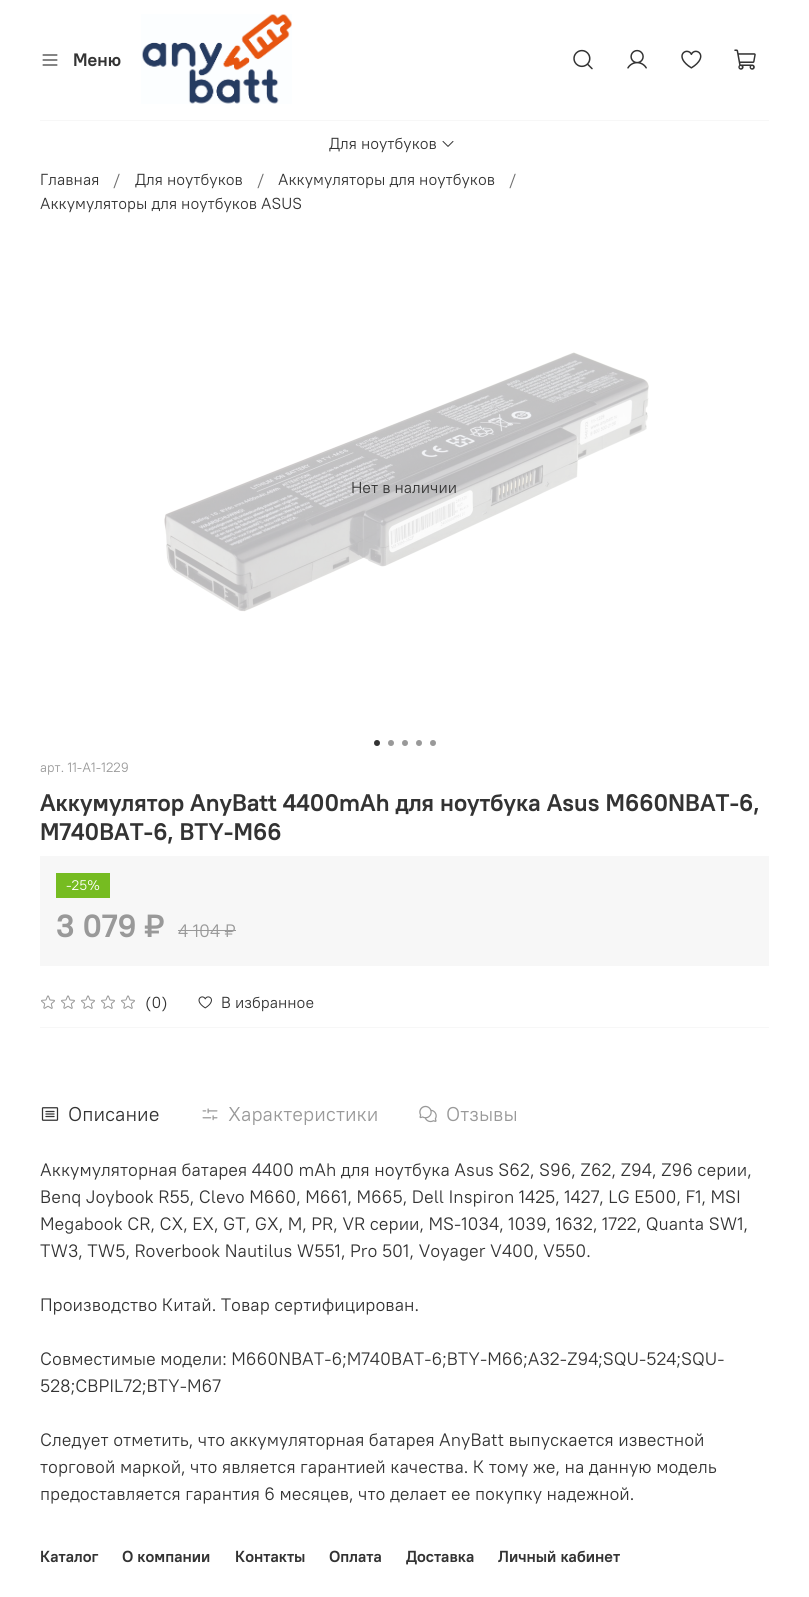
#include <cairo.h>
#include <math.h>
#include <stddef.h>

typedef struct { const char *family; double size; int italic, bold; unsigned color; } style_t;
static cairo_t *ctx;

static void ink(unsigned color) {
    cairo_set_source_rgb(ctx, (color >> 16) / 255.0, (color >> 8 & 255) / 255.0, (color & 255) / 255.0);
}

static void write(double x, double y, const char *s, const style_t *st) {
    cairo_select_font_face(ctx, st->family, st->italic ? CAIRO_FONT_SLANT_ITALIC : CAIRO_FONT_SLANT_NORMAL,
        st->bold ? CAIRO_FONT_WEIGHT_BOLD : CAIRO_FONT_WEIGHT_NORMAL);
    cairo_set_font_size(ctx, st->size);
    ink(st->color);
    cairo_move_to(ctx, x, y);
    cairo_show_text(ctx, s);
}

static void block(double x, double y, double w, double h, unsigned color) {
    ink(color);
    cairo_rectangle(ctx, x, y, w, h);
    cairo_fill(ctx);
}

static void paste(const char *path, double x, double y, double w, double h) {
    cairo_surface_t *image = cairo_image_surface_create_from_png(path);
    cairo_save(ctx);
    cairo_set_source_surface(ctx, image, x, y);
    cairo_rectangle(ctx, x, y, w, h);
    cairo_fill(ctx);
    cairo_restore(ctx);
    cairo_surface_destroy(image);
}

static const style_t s1 = {"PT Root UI", 18, 0, 1, 0x333333};
static const style_t s2 = {"PT Root UI", 16, 0, 0, 0x333333};
static const style_t s3 = {"PT Root UI", 16, 0, 0, 0x707070};
static const style_t s4 = {"PT Root UI", 13.5, 0, 0, 0x999999};
static const style_t s5 = {"PT Root UI", 24, 0, 1, 0x333333};
static const style_t s6 = {"PT Root UI", 14, 0, 0, 0xffffff};
static const style_t s7 = {"PT Root UI", 32, 0, 1, 0x999999};
static const style_t s8 = {"PT Root UI", 18, 0, 0, 0x999999};
static const style_t s9 = {"PT Root UI", 20, 0, 0, 0x333333};
static const style_t s10 = {"PT Root UI", 20, 0, 0, 0x999999};
static const style_t s11 = {"PT Root UI", 18, 0, 0, 0x333333};
static const style_t s12 = {"PT Root UI", 16, 0, 1, 0x333333};

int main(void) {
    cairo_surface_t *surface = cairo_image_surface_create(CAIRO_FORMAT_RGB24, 809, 1597);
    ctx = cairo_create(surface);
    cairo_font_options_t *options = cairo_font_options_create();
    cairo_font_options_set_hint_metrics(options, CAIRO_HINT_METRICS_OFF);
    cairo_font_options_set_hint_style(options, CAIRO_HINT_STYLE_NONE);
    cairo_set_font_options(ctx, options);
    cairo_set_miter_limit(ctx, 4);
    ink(0xffffff);
    cairo_paint(ctx);
    paste("pic1.png", 42, 54, 16, 12);
    write(73, 66, "Меню", &s1);
    paste("pic2.png", 141, 14, 151, 90);
    paste("pic3.png", 573, 49, 20, 21);
    paste("pic4.png", 627, 49, 20, 20);
    paste("pic5.png", 681, 50, 21, 19);
    paste("pic6.png", 734, 49, 22, 21);
    block(40, 120, 729, 1, 0xf7f7f7);
    write(329, 149, "Для ноутбуков", &s2);
    paste("pic7.png", 442, 141, 12, 6);
    write(40, 185, "Главная", &s2);
    write(113, 185, "/", &s3);
    write(135, 185, "Для ноутбуков", &s2);
    write(257, 185, "/", &s3);
    write(278, 185, "Аккумуляторы для ноутбуков", &s2);
    write(509, 185, "/", &s3);
    write(40, 209, "Аккумуляторы для ноутбуков ASUS", &s2);
    paste("pic8.png", 164, 352, 485, 260);
    cairo_arc(ctx, 377, 743, 3, 0, 2 * M_PI);
    cairo_fill(ctx);
    ink(0x999999);
    cairo_arc(ctx, 391, 743, 3, 0, 2 * M_PI);
    cairo_fill(ctx);
    cairo_arc(ctx, 405, 743, 3, 0, 2 * M_PI);
    cairo_fill(ctx);
    cairo_arc(ctx, 419, 743, 3, 0, 2 * M_PI);
    cairo_fill(ctx);
    cairo_arc(ctx, 433, 743, 3, 0, 2 * M_PI);
    cairo_fill(ctx);
    write(351, 493, "Нет в наличии", &s2);
    write(40, 772, "арт. 11-A1-1229", &s4);
    write(40, 811, "Аккумулятор AnyBatt 4400mAh для ноутбука Asus M660NBAT-6,", &s5);
    write(40, 840, "M740BAT-6, BTY-M66", &s5);
    block(40, 856, 729, 110, 0xf7f7f7);
    block(56, 873, 54, 25, 0x76bc21);
    write(66, 890, "-25%", &s6);
    write(56, 937, "3 079 ₽", &s7);
    write(178, 937, "4 104 ₽", &s8);
    block(178, 930, 58, 1, 0x999999);
    block(40, 1027, 729, 1, 0xf7f7f7);
    paste("pic9.png", 41, 995, 14, 14);
    paste("pic9.png", 61, 995, 14, 14);
    paste("pic9.png", 81, 995, 14, 14);
    paste("pic9.png", 101, 995, 14, 14);
    paste("pic9.png", 121, 995, 14, 14);
    write(145, 1008, "(0)", &s2);
    paste("pic10.png", 198, 996, 14, 13);
    write(221, 1008, "В избранное", &s2);
    paste("pic11.png", 41, 1107, 18, 14);
    write(68, 1121, "Описание", &s9);
    paste("pic12.png", 202, 1108, 16, 13);
    write(228, 1121, "Характеристики", &s10);
    paste("pic13.png", 419, 1105, 18, 18);
    write(446, 1121, "Отзывы", &s10);
    write(40, 1176, "Аккумуляторная батарея 4400 mAh для ноутбука Asus S62, S96, Z62, Z94, Z96 серии,", &s11);
    write(40, 1203, "Benq Joybook R55, Clevo M660, M661, M665, Dell Inspiron 1425, 1427, LG E500, F1, MSI", &s11);
    write(40, 1230, "Megabook CR, CX, EX, GT, GX, M, PR, VR серии, MS-1034, 1039, 1632, 1722, Quanta SW1,", &s11);
    write(40, 1257, "TW3, TW5, Roverbook Nautilus W551, Pro 501, Voyager V400, V550.", &s11);
    write(40, 1311, "Производство Китай. Товар сертифицирован.", &s11);
    write(40, 1365, "Совместимые модели: M660NBAT-6;M740BAT-6;BTY-M66;A32-Z94;SQU-524;SQU-", &s11);
    write(40, 1392, "528;CBPIL72;BTY-M67", &s11);
    write(40, 1446, "Следует отметить, что аккумуляторная батарея AnyBatt выпускается известной", &s11);
    write(40, 1473, "торговой маркой, что является гарантией качества. К тому же, на данную модель", &s11);
    write(40, 1500, "предоставляется гарантия 6 месяцев, что делает ее покупку надежной.", &s11);
    write(40, 1562, "Каталог", &s12);
    write(122, 1562, "О компании", &s12);
    write(235, 1562, "Контакты", &s12);
    write(329, 1562, "Оплата", &s12);
    write(406, 1562, "Доставка", &s12);
    write(498, 1562, "Личный кабинет", &s12);
    cairo_surface_write_to_png(surface, "screenshot.png");
    cairo_font_options_destroy(options);
    cairo_destroy(ctx);
    cairo_surface_destroy(surface);
    return 0;
}
